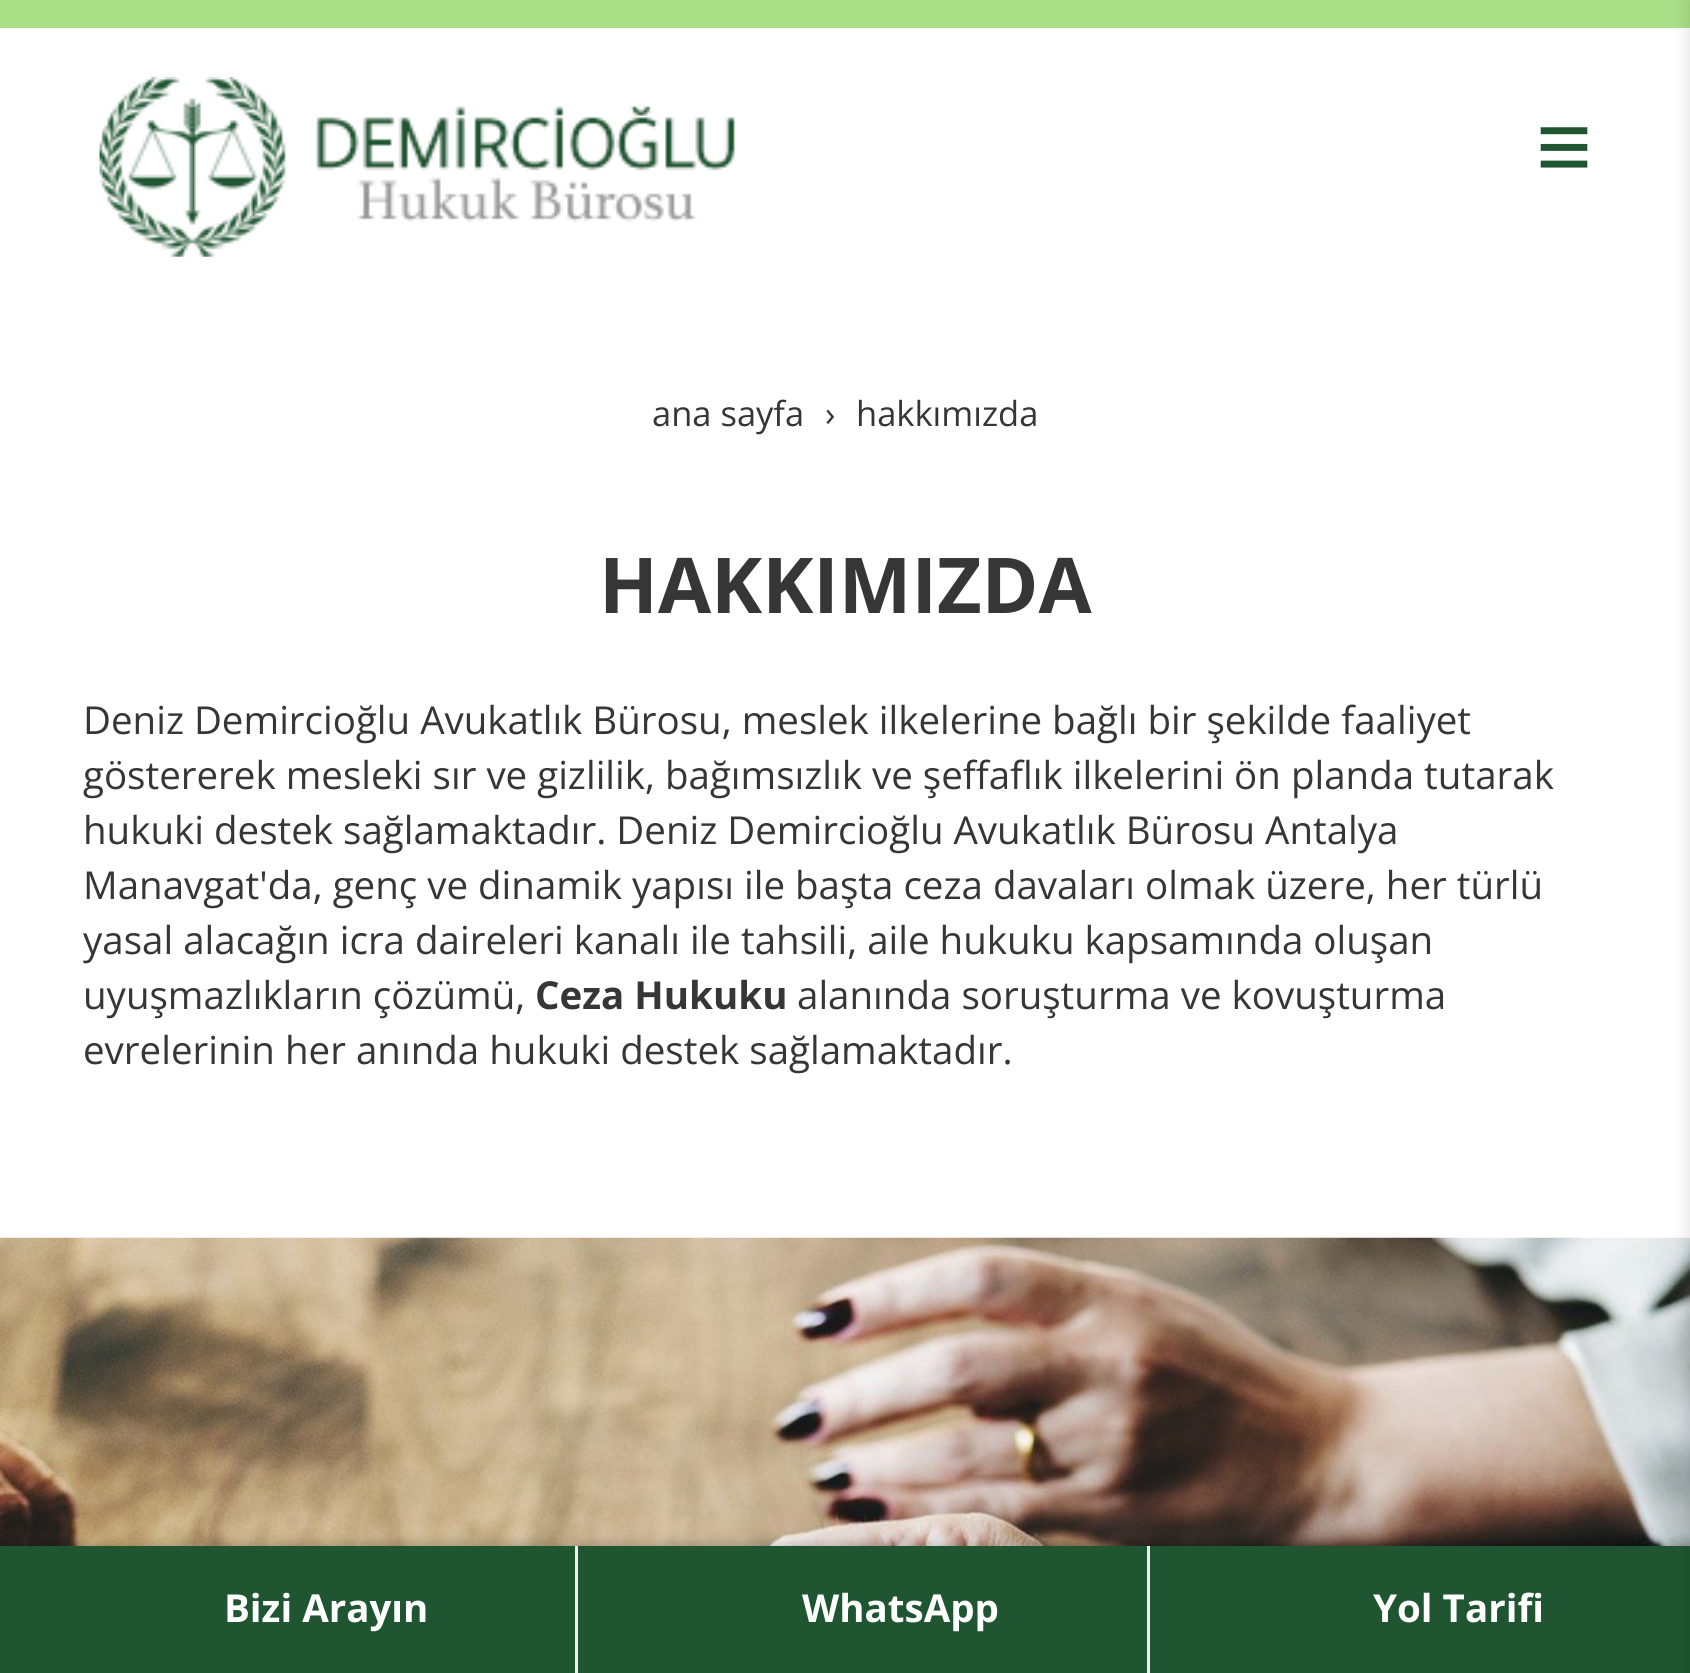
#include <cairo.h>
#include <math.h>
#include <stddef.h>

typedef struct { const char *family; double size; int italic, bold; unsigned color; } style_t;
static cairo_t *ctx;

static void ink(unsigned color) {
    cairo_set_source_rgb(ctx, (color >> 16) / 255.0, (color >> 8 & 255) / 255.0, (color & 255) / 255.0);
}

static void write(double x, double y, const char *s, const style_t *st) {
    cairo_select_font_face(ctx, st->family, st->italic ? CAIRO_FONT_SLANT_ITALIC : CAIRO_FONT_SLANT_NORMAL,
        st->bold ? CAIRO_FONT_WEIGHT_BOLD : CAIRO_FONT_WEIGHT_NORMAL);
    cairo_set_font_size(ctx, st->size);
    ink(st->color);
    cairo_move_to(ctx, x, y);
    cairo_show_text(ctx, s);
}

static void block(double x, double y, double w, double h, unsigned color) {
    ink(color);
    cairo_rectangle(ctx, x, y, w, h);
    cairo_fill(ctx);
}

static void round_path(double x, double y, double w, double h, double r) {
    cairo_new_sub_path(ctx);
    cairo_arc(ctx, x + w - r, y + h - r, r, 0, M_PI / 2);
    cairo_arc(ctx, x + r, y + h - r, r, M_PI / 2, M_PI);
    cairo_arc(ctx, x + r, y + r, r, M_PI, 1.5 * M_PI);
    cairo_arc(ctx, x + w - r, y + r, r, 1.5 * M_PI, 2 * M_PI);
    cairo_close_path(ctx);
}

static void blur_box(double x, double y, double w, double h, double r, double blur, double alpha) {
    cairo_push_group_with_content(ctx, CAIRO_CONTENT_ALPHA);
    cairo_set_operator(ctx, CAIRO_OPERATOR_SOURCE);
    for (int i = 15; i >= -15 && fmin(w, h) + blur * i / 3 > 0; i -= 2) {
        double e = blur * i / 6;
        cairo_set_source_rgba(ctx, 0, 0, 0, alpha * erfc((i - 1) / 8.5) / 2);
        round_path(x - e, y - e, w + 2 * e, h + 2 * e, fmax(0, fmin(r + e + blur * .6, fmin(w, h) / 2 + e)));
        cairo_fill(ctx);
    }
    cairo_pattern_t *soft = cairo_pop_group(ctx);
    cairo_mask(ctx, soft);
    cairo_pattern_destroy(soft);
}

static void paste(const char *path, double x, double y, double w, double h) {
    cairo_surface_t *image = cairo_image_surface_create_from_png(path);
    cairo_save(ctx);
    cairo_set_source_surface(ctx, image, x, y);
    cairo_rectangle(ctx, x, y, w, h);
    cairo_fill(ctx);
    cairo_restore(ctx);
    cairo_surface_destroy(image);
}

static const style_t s1 = {"Liberation Sans", 96, 0, 0, 0x1f5631};
static const style_t s2 = {"Open Sans", 34.5, 0, 0, 0x363636};
static const style_t s3 = {"Open Sans", 77, 0, 1, 0x363636};
static const style_t s4 = {"Open Sans", 38.5, 0, 0, 0x363636};
static const style_t s5 = {"Open Sans", 38.5, 0, 1, 0x363636};
static const style_t s6 = {"Open Sans", 38.5, 0, 1, 0xffffff};

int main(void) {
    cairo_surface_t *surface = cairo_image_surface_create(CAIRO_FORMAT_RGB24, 1690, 1673);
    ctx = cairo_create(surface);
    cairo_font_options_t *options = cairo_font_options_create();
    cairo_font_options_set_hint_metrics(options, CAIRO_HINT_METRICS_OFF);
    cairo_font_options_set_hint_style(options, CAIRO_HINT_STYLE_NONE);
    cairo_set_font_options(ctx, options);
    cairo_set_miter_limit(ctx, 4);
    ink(0xffffff);
    cairo_paint(ctx);
    block(0, 0, 1690, 28, 0xabdf88);
    paste("pic1.png", 99, 77, 636, 180);
    write(1536, 179, "≡", &s1);
    write(652, 426, "ana sayfa", &s2);
    write(825, 426, "›", &s2);
    write(856, 426, "hakkımızda", &s2);
    write(599, 613, "HAKKIMIZDA", &s3);
    write(83, 734, "Deniz Demircioğlu Avukatlık Bürosu, meslek ilkelerine bağlı bir şekilde faaliyet", &s4);
    write(83, 789, "göstererek mesleki sır ve gizlilik, bağımsızlık ve şeffaflık ilkelerini ön planda tutarak", &s4);
    write(83, 844, "hukuki destek sağlamaktadır. Deniz Demircioğlu Avukatlık Bürosu Antalya", &s4);
    write(83, 899, "Manavgat'da, genç ve dinamik yapısı ile başta ceza davaları olmak üzere, her türlü", &s4);
    write(83, 954, "yasal alacağın icra daireleri kanalı ile tahsili, aile hukuku kapsamında oluşan", &s4);
    write(83, 1009, "uyuşmazlıkların çözümü,", &s4);
    write(535, 1009, "Ceza Hukuku", &s5);
    write(797, 1009, "alanında soruşturma ve kovuşturma", &s4);
    write(83, 1064, "evrelerinin her anında hukuki destek sağlamaktadır.", &s4);
    paste("pic2.png", 0, 1237, 1690, 309);
    ink(0x000000);
    blur_box(0, 1546, 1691, 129, 0, 7, 0.25);
    block(0, 1546, 1690, 127, 0x1f5631);
    block(575, 1546, 3, 127, 0xeeeeee);
    write(224, 1622, "Bizi Arayın", &s6);
    block(1147, 1546, 3, 127, 0xeeeeee);
    write(802, 1622, "WhatsApp", &s6);
    write(1373, 1622, "Yol Tarifi", &s6);
    ink(0x000000);
    blur_box(1686, 0, 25, 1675, 0, 7, 0.1);
    cairo_surface_write_to_png(surface, "screenshot.png");
    cairo_font_options_destroy(options);
    cairo_destroy(ctx);
    cairo_surface_destroy(surface);
    return 0;
}
